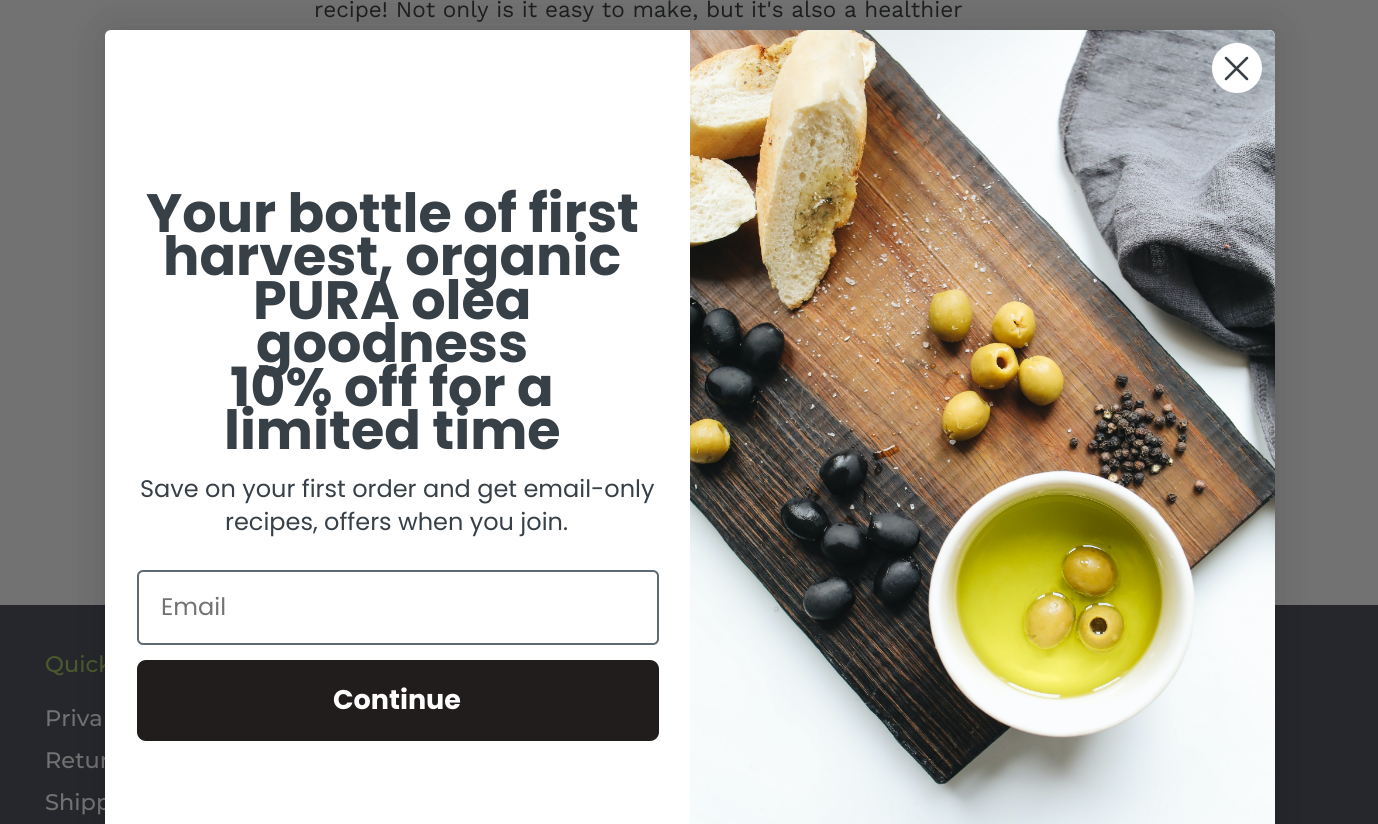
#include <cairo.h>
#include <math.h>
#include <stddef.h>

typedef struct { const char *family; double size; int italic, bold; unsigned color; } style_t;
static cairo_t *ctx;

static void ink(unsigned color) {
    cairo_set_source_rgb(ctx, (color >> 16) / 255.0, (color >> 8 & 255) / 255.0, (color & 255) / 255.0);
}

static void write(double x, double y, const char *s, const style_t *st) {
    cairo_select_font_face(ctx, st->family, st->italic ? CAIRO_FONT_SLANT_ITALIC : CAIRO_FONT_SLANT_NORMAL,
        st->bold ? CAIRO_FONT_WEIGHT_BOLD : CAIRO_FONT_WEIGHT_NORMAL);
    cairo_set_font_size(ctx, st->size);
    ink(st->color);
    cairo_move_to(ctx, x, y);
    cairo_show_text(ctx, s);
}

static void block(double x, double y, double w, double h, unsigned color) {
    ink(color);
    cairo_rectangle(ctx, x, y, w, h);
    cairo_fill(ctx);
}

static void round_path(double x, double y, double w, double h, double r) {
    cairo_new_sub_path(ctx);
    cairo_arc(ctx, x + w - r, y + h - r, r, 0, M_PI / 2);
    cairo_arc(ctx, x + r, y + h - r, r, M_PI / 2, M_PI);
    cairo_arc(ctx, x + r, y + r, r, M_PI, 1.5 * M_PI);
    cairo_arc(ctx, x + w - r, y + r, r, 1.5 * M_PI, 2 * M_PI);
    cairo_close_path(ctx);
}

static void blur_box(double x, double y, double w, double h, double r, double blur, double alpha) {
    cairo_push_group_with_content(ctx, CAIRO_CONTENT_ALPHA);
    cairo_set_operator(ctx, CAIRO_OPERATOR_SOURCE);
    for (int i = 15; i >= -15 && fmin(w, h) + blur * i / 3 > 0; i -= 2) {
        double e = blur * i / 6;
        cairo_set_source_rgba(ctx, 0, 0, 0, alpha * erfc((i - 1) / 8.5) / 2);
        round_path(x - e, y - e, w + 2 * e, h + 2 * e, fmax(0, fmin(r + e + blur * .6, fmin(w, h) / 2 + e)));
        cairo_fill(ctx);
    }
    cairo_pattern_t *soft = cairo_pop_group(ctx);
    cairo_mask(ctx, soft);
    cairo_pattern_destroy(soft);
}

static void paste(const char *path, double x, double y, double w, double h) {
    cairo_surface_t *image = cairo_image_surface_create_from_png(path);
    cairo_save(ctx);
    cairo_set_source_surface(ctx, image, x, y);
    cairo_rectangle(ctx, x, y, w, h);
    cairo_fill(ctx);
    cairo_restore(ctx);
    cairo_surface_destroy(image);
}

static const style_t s1 = {"Work Sans", 22.5, 0, 0, 0x1d1e20};
static const style_t s2 = {"Montserrat Medium", 22.5, 0, 0, 0x4d582e};
static const style_t s3 = {"Montserrat Medium", 22.5, 0, 0, 0x727272};
static const style_t s4 = {"Poppins", 54, 0, 1, 0x373f47};
static const style_t s5 = {"Poppins", 24, 0, 0, 0x373f47};
static const style_t s6 = {"Poppins", 24, 0, 0, 0x727272};
static const style_t s7 = {"Poppins", 27, 0, 1, 0xffffff};

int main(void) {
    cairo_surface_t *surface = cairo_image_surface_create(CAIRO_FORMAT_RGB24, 1378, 824);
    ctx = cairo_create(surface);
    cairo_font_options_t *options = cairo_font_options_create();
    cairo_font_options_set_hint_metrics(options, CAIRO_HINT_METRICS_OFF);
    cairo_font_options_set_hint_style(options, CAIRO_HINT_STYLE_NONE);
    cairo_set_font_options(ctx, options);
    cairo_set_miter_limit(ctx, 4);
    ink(0x727272);
    cairo_paint(ctx);
    write(314, 17, "recipe! Not only is it easy to make, but it's also a healthier", &s1);
    block(0, 605, 1378, 219, 0x25272c);
    write(45, 672, "Quick", &s2);
    write(45, 726, "Priva", &s3);
    write(45, 768, "Retur", &s3);
    write(45, 810, "Shipp", &s3);
    ink(0x000000);
    blur_box(105, 30, 1170, 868, 6, 22.5, 0.15);
    ink(0xffffff);
    cairo_new_path(ctx);
    cairo_move_to(ctx, 111, 30);
    cairo_line_to(ctx, 1269, 30);
    cairo_curve_to(ctx, 1272.5, 30, 1275, 32.5, 1275, 36);
    cairo_line_to(ctx, 1275, 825);
    cairo_line_to(ctx, 105, 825);
    cairo_line_to(ctx, 105, 36);
    cairo_curve_to(ctx, 105, 32.5, 107.5, 30, 111, 30);
    cairo_close_path(ctx);
    cairo_fill(ctx);
    paste("pic1.png", 690, 30, 585, 794);
    cairo_arc(ctx, 1237, 68, 25, 0, 2 * M_PI);
    cairo_fill(ctx);
    cairo_new_path(ctx);
    cairo_move_to(ctx, 1226, 58);
    cairo_line_to(ctx, 1247, 79);
    cairo_move_to(ctx, 1226, 79);
    cairo_line_to(ctx, 1247, 58);
    cairo_close_path(ctx);
    ink(0x373f47);
    cairo_set_line_width(ctx, 2.6);
    cairo_set_line_cap(ctx, CAIRO_LINE_CAP_ROUND);
    cairo_set_line_join(ctx, CAIRO_LINE_JOIN_ROUND);
    cairo_stroke(ctx);
    write(146, 232, "Your bottle of first", &s4);
    write(163, 275, "harvest, organic", &s4);
    write(253, 319, "PURA olea", &s4);
    write(256, 362, "goodness", &s4);
    write(230, 406, "10% off for a", &s4);
    write(224, 449, "limited time", &s4);
    write(140, 497, "Save on your first order and get email-only", &s5);
    write(225, 530, "recipes, offers when you join.", &s5);
    round_path(138, 571, 520, 73, 5);
    ink(0x606a72);
    cairo_set_line_width(ctx, 2);
    cairo_set_line_cap(ctx, CAIRO_LINE_CAP_BUTT);
    cairo_set_line_join(ctx, CAIRO_LINE_JOIN_MITER);
    cairo_stroke(ctx);
    write(161, 615, "Email", &s6);
    ink(0x211d1c);
    round_path(137, 660, 522, 81, 9);
    cairo_fill(ctx);
    write(333, 709, "Continue", &s7);
    cairo_surface_write_to_png(surface, "screenshot.png");
    cairo_font_options_destroy(options);
    cairo_destroy(ctx);
    cairo_surface_destroy(surface);
    return 0;
}
